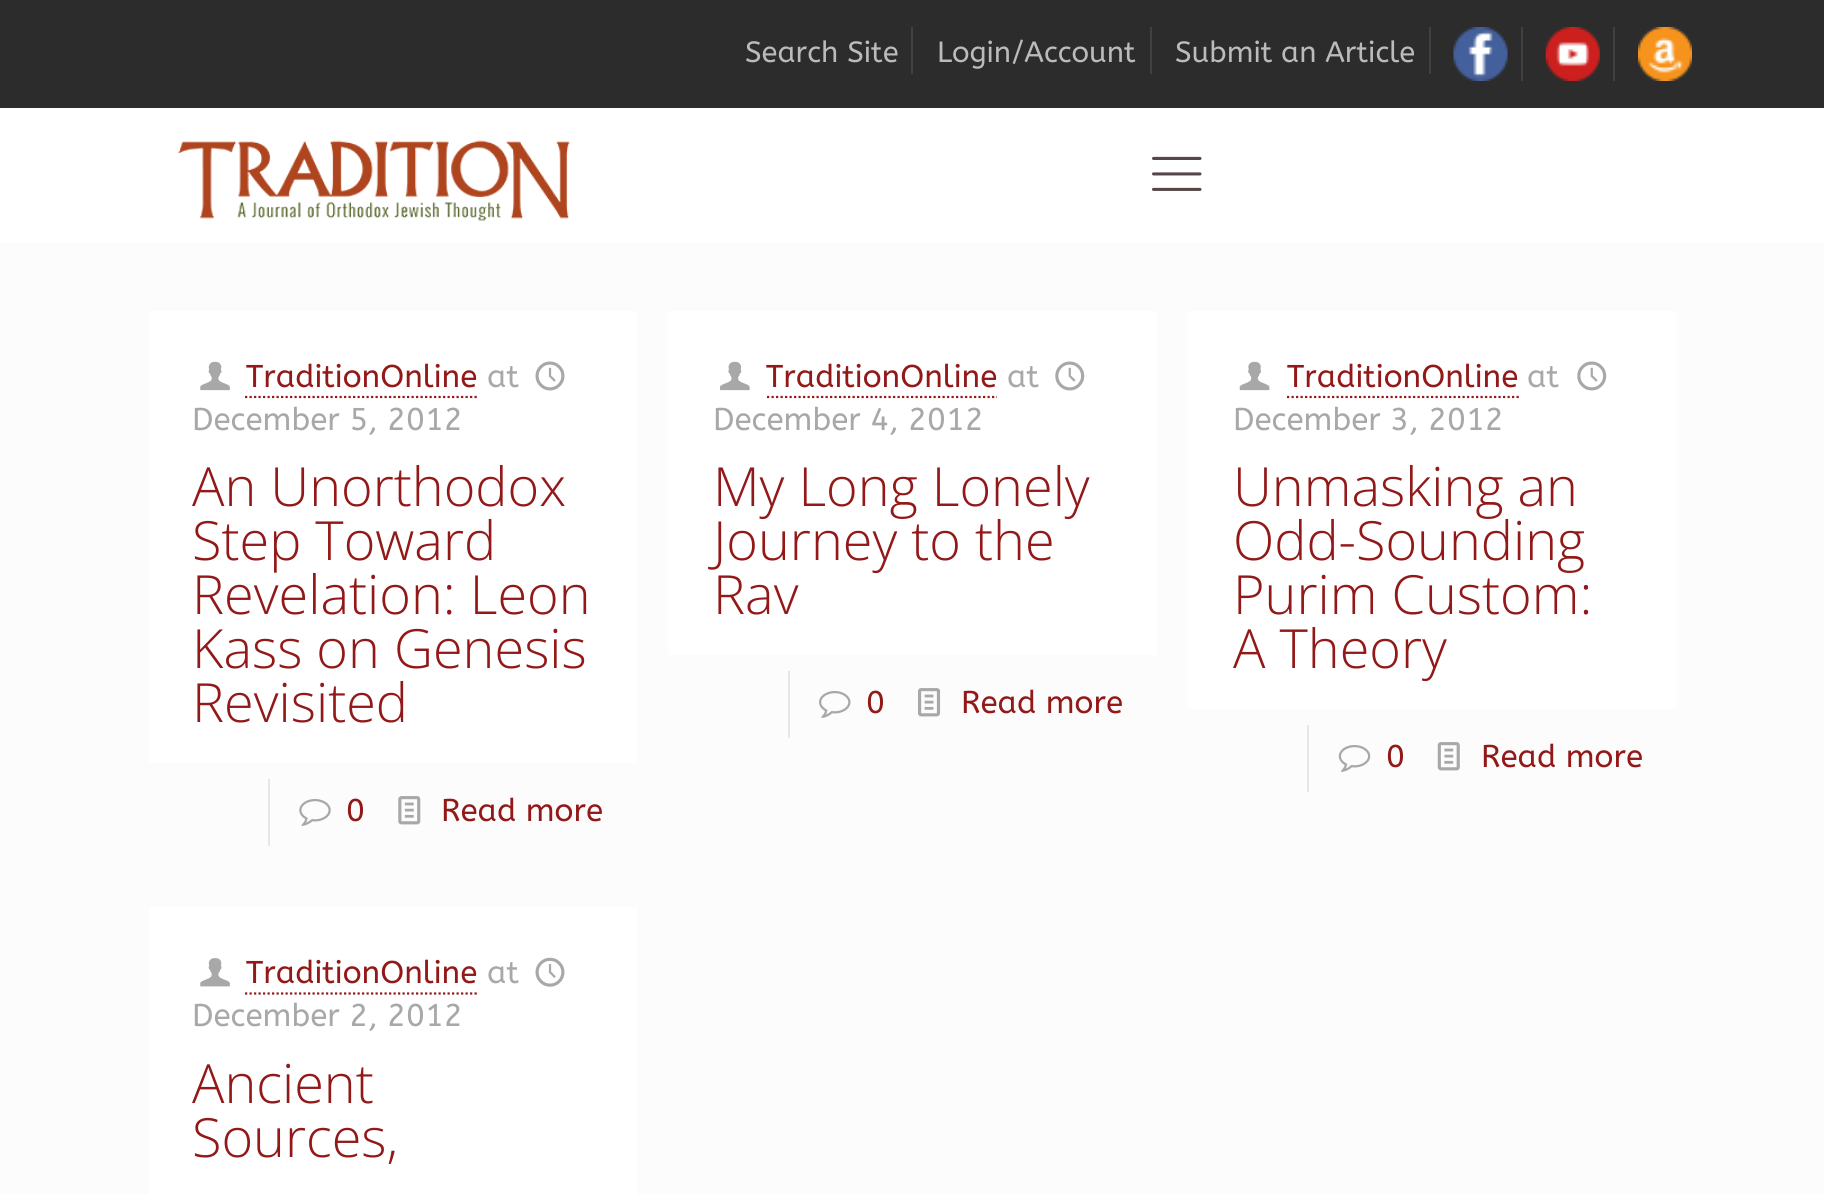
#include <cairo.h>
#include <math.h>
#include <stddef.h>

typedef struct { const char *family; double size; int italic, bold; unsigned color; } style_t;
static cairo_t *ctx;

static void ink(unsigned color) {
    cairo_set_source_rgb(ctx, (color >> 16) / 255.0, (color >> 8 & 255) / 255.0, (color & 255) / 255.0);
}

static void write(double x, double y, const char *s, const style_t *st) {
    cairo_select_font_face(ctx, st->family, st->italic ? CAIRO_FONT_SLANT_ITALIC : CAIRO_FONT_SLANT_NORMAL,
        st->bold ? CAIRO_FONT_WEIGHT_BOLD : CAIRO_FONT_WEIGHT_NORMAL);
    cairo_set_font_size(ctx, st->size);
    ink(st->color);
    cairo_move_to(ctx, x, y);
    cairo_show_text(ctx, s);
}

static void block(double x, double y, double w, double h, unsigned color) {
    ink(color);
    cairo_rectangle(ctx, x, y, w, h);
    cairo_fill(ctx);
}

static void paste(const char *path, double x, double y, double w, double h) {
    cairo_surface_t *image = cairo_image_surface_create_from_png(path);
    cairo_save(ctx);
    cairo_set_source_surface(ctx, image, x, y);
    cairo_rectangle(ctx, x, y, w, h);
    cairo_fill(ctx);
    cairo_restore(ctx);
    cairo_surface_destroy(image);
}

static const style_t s1 = {"ABeeZee", 29.25, 0, 0, 0xbbbbbb};
static const style_t s2 = {"ABeeZee", 31.5, 0, 0, 0x931919};
static const style_t s3 = {"ABeeZee", 31.5, 0, 0, 0xa8a8a8};
static const style_t s4 = {"Open Sans Light", 54, 0, 0, 0x931919};

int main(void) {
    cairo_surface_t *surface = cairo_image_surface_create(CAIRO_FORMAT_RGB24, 1824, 1194);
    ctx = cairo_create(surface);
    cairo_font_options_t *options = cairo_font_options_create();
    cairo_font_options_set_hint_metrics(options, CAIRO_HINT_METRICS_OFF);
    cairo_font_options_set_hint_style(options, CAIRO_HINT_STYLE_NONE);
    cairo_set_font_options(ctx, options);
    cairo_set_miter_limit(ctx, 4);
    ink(0xfcfcfc);
    cairo_paint(ctx);
    block(0, 0, 1824, 108, 0x2c2c2c);
    block(911, 27, 2, 47, 0x414141);
    write(745, 62, "Search Site", &s1);
    block(1150, 27, 2, 47, 0x414141);
    write(937, 62, "Login/Account", &s1);
    block(1429, 27, 2, 47, 0x414141);
    write(1175, 62, "Submit an Article", &s1);
    block(1521, 27, 2, 54, 0x414141);
    paste("pic1.png", 1453, 27, 55, 54);
    block(1613, 27, 2, 54, 0x414141);
    paste("pic2.png", 1545, 27, 55, 54);
    paste("pic3.png", 1638, 27, 54, 54);
    block(0, 108, 1824, 135, 0xffffff);
    paste("pic4.png", 177, 140, 393, 81);
    paste("pic5.png", 1152, 156, 50, 35);
    block(149, 311, 488, 452, 0xffffff);
    paste("pic6.png", 200, 361, 30, 30);
    write(246, 387, "TraditionOnline", &s2);
    cairo_new_path(ctx);
    cairo_move_to(ctx, 245, 397);
    cairo_line_to(ctx, 477, 397);
    cairo_set_line_width(ctx, 2.2);
    cairo_set_dash(ctx, (double[]){2.25, 2.25}, 2, 0);
    cairo_stroke(ctx);
    write(487, 387, "at", &s3);
    paste("pic7.png", 535, 361, 30, 30);
    write(192, 430, "December 5, 2012", &s3);
    write(192, 506, "An Unorthodox", &s4);
    write(192, 560, "Step Toward", &s4);
    write(192, 614, "Revelation: Leon", &s4);
    write(192, 668, "Kass on Genesis", &s4);
    write(192, 722, "Revisited", &s4);
    block(268, 779, 2, 67, 0xe6e6e6);
    paste("pic8.png", 299, 799, 32, 27);
    write(346, 821, "0", &s2);
    paste("pic9.png", 398, 796, 23, 29);
    write(441, 821, "Read more", &s2);
    block(668, 311, 489, 344, 0xffffff);
    paste("pic10.png", 720, 361, 30, 30);
    write(766, 387, "TraditionOnline", &s2);
    cairo_new_path(ctx);
    cairo_move_to(ctx, 767, 397);
    cairo_line_to(ctx, 997, 397);
    cairo_stroke(ctx);
    write(1007, 387, "at", &s3);
    paste("pic11.png", 1055, 361, 30, 30);
    write(713, 430, "December 4, 2012", &s3);
    write(713, 506, "My Long Lonely", &s4);
    write(713, 560, "Journey to the", &s4);
    write(713, 614, "Rav", &s4);
    block(788, 671, 2, 67, 0xe6e6e6);
    paste("pic12.png", 819, 691, 32, 27);
    write(866, 713, "0", &s2);
    paste("pic13.png", 918, 688, 23, 29);
    write(961, 713, "Read more", &s2);
    block(1188, 311, 488, 398, 0xffffff);
    paste("pic14.png", 1239, 361, 31, 30);
    write(1287, 387, "TraditionOnline", &s2);
    cairo_new_path(ctx);
    cairo_move_to(ctx, 1287, 397);
    cairo_line_to(ctx, 1519, 397);
    cairo_stroke(ctx);
    write(1527, 387, "at", &s3);
    paste("pic11.png", 1577, 361, 30, 30);
    write(1233, 430, "December 3, 2012", &s3);
    write(1233, 506, "Unmasking an", &s4);
    write(1233, 560, "Odd-Sounding", &s4);
    write(1233, 614, "Purim Custom:", &s4);
    write(1233, 668, "A Theory", &s4);
    block(1307, 725, 2, 67, 0xe6e6e6);
    paste("pic15.png", 1338, 745, 33, 27);
    write(1386, 767, "0", &s2);
    paste("pic16.png", 1437, 742, 23, 29);
    write(1481, 767, "Read more", &s2);
    block(149, 907, 488, 287, 0xffffff);
    paste("pic17.png", 200, 958, 30, 29);
    write(246, 983, "TraditionOnline", &s2);
    cairo_new_path(ctx);
    cairo_move_to(ctx, 245, 993.5);
    cairo_line_to(ctx, 477, 993.5);
    cairo_stroke(ctx);
    write(487, 983, "at", &s3);
    paste("pic18.png", 535, 957, 30, 30);
    write(192, 1026, "December 2, 2012", &s3);
    write(192, 1103, "Ancient", &s4);
    write(192, 1157, "Sources,", &s4);
    cairo_surface_write_to_png(surface, "screenshot.png");
    cairo_font_options_destroy(options);
    cairo_destroy(ctx);
    cairo_surface_destroy(surface);
    return 0;
}
